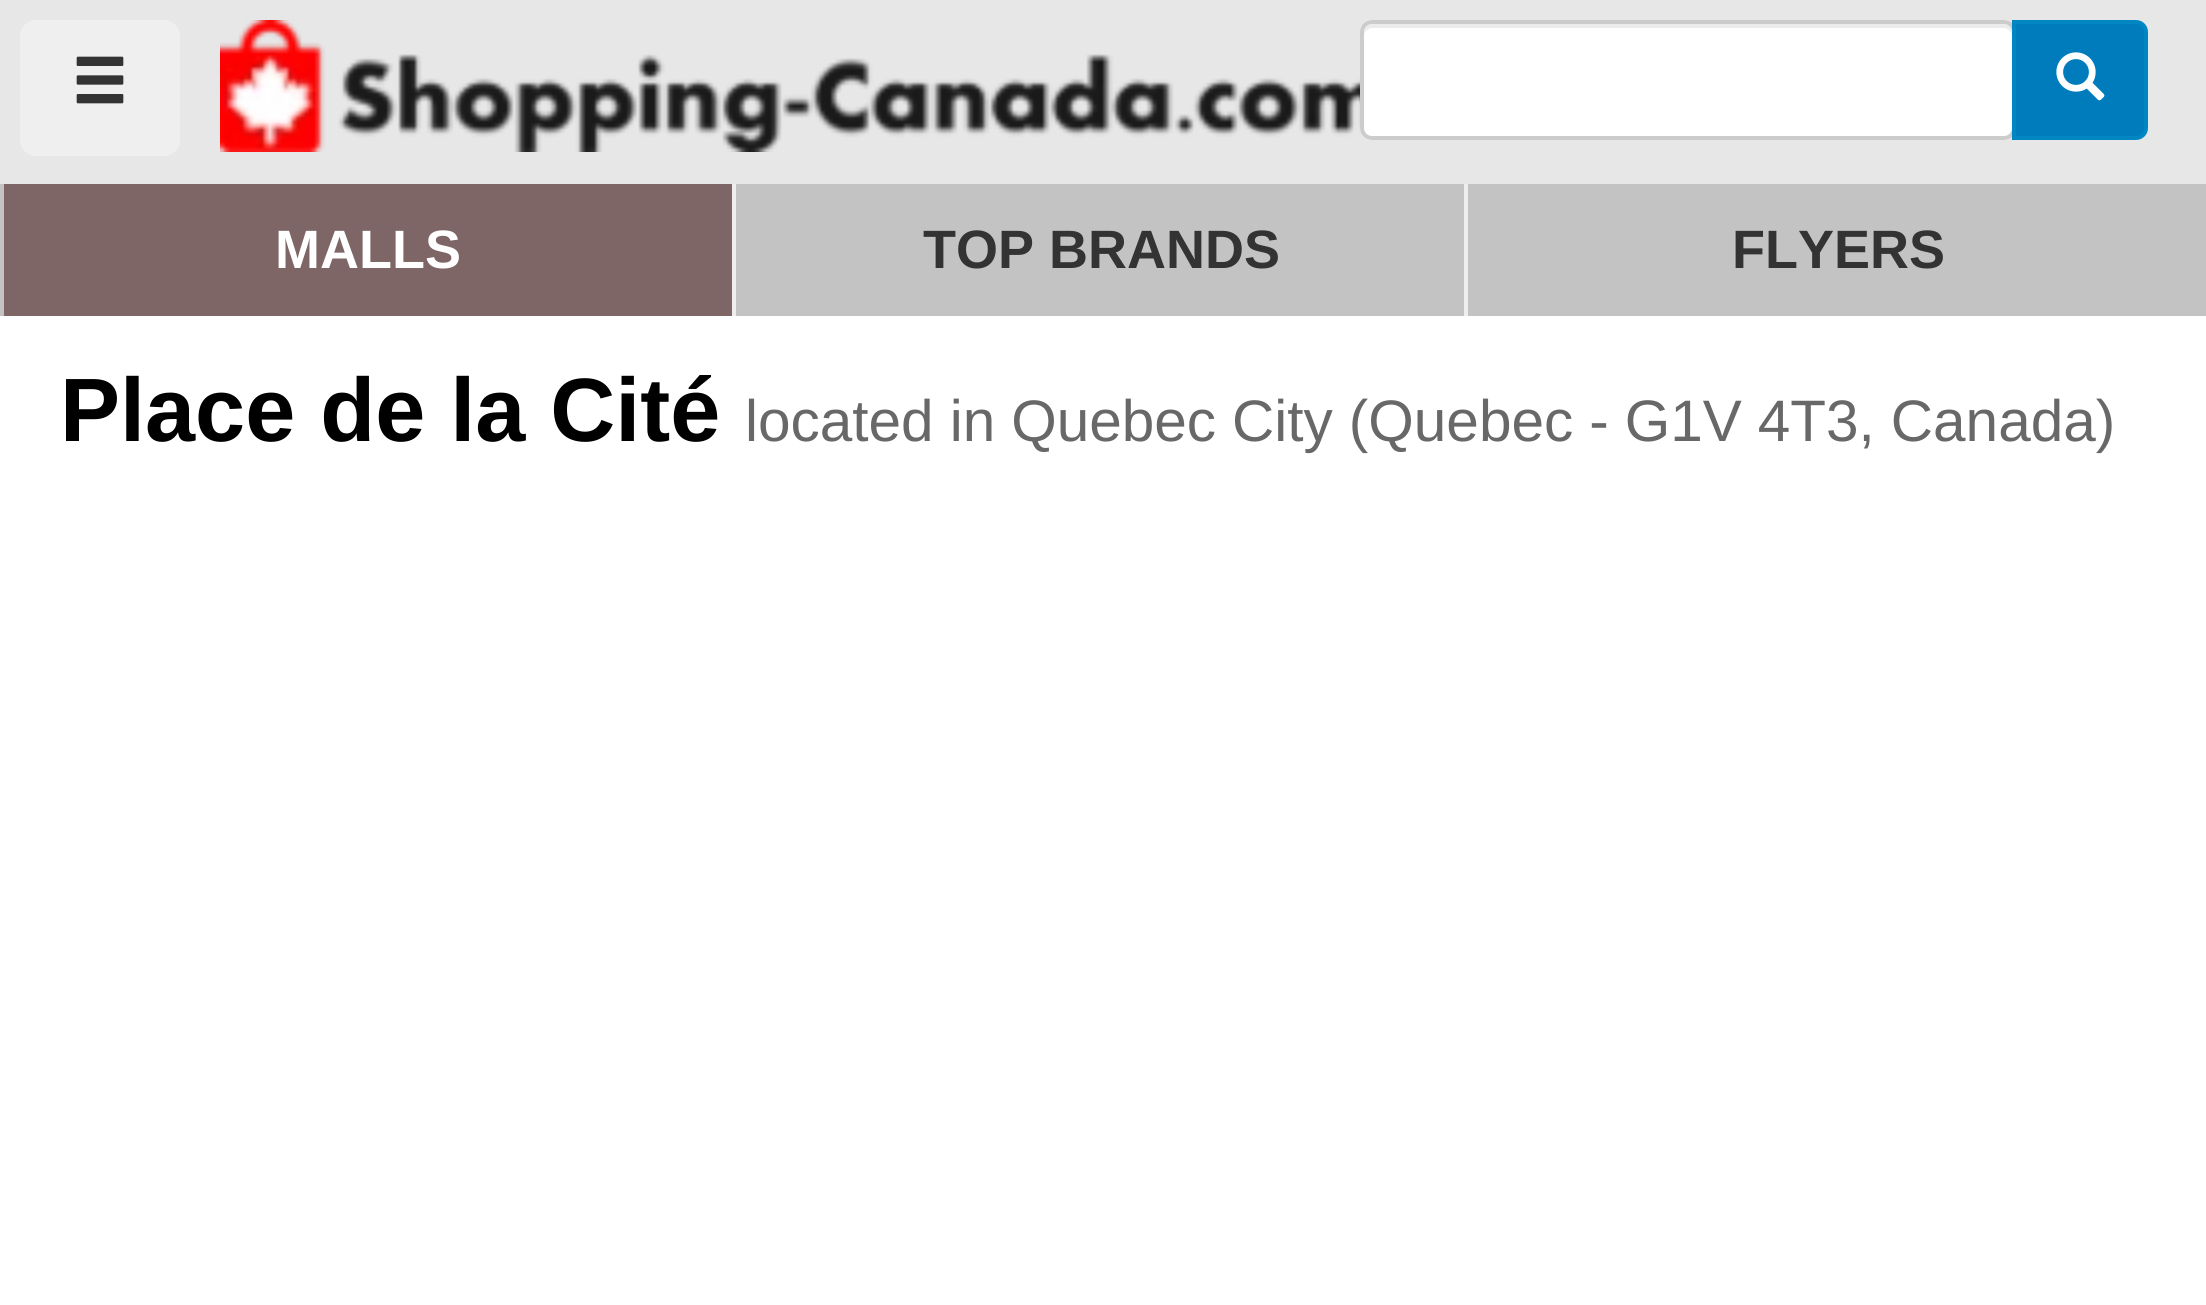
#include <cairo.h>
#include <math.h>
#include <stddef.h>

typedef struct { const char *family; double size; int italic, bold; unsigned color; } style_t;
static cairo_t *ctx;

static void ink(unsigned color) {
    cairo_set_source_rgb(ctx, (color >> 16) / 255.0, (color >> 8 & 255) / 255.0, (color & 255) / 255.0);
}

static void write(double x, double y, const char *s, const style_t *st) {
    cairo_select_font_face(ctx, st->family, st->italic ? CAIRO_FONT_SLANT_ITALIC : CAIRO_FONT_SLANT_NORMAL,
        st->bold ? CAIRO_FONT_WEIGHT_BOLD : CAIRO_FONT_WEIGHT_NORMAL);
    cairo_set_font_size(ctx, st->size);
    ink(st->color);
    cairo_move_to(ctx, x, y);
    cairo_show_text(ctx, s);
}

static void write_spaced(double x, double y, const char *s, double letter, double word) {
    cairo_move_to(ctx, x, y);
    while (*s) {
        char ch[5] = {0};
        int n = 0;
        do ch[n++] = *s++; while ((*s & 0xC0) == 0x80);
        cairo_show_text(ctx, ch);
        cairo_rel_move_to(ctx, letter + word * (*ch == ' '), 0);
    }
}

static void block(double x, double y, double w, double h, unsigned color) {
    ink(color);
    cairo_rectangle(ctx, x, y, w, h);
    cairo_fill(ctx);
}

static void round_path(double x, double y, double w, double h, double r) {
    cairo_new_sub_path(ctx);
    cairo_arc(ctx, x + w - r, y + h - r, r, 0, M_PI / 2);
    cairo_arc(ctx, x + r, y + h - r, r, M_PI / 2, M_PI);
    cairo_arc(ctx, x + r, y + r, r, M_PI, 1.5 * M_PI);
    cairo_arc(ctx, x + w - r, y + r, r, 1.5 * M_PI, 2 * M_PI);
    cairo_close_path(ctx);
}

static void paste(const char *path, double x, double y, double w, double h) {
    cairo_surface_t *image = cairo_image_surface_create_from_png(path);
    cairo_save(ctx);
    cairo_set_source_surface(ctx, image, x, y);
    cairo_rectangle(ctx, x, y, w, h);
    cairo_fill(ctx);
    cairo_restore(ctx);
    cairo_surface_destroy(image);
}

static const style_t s1 = {"Liberation Sans", 54, 0, 1, 0xffffff};
static const style_t s2 = {"Liberation Sans", 54, 0, 1, 0x333333};
static const style_t s3 = {"Liberation Sans", 90, 0, 1, 0x000000};

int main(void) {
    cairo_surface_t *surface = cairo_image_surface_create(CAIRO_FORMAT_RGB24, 2206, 1305);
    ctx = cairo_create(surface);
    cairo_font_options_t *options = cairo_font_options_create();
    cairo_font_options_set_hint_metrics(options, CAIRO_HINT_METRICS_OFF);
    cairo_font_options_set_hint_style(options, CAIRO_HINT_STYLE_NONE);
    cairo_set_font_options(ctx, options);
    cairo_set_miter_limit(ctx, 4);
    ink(0xffffff);
    cairo_paint(ctx);
    block(0, 0, 2206, 184, 0xe7e7e7);
    ink(0xefefef);
    round_path(20, 20, 160, 136, 16);
    cairo_fill(ctx);
    paste("pic1.png", 76, 56, 48, 48);
    paste("pic2.png", 220, 20, 1141, 132);
    ink(0xffffff);
    round_path(1360, 20, 656, 120, 12);
    cairo_fill(ctx);
    ink(0xececec);
    cairo_new_path(ctx);
    cairo_move_to(ctx, 1372, 28);
    cairo_line_to(ctx, 2004, 28);
    cairo_curve_to(ctx, 2008, 28, 2012, 32, 2012, 36);
    cairo_curve_to(ctx, 2012, 30, 2011, 24, 2004, 24);
    cairo_line_to(ctx, 1372, 24);
    cairo_curve_to(ctx, 1365, 24, 1364, 30, 1364, 36);
    cairo_curve_to(ctx, 1364, 32, 1368, 28, 1372, 28);
    cairo_close_path(ctx);
    cairo_fill(ctx);
    round_path(1362, 22, 652, 116, 10);
    ink(0xcccccc);
    cairo_set_line_width(ctx, 4);
    cairo_stroke(ctx);
    ink(0x007cbd);
    cairo_new_path(ctx);
    cairo_move_to(ctx, 2014, 22);
    cairo_line_to(ctx, 2136, 22);
    cairo_curve_to(ctx, 2141.5, 22, 2146, 26.5, 2146, 32);
    cairo_line_to(ctx, 2146, 128);
    cairo_curve_to(ctx, 2146, 133.5, 2141.5, 138, 2136, 138);
    cairo_line_to(ctx, 2014, 138);
    cairo_close_path(ctx);
    cairo_fill_preserve(ctx);
    ink(0x0087c2);
    cairo_stroke(ctx);
    paste("pic3.png", 2056, 52, 49, 49);
    block(0, 184, 2206, 132, 0xc3c3c3);
    block(732, 184, 4, 132, 0xeeeeee);
    block(4, 184, 728, 132, 0x7e6666);
    write(275, 268, "MALLS", &s1);
    block(1464, 184, 4, 132, 0xeeeeee);
    write(923, 268, "TOP BRANDS", &s2);
    write(1732, 268, "FLYERS", &s2);
    write(60, 441, "Place de la Cité", &s3);
    cairo_select_font_face(ctx, "Liberation Sans", CAIRO_FONT_SLANT_NORMAL, CAIRO_FONT_WEIGHT_NORMAL);
    cairo_set_font_size(ctx, 58.5);
    ink(0x686868);
    write_spaced(745, 441, "located in Quebec City (Quebec - G1V 4T3, Canada)", 0, -0.25);
    cairo_surface_write_to_png(surface, "screenshot.png");
    cairo_font_options_destroy(options);
    cairo_destroy(ctx);
    cairo_surface_destroy(surface);
    return 0;
}
